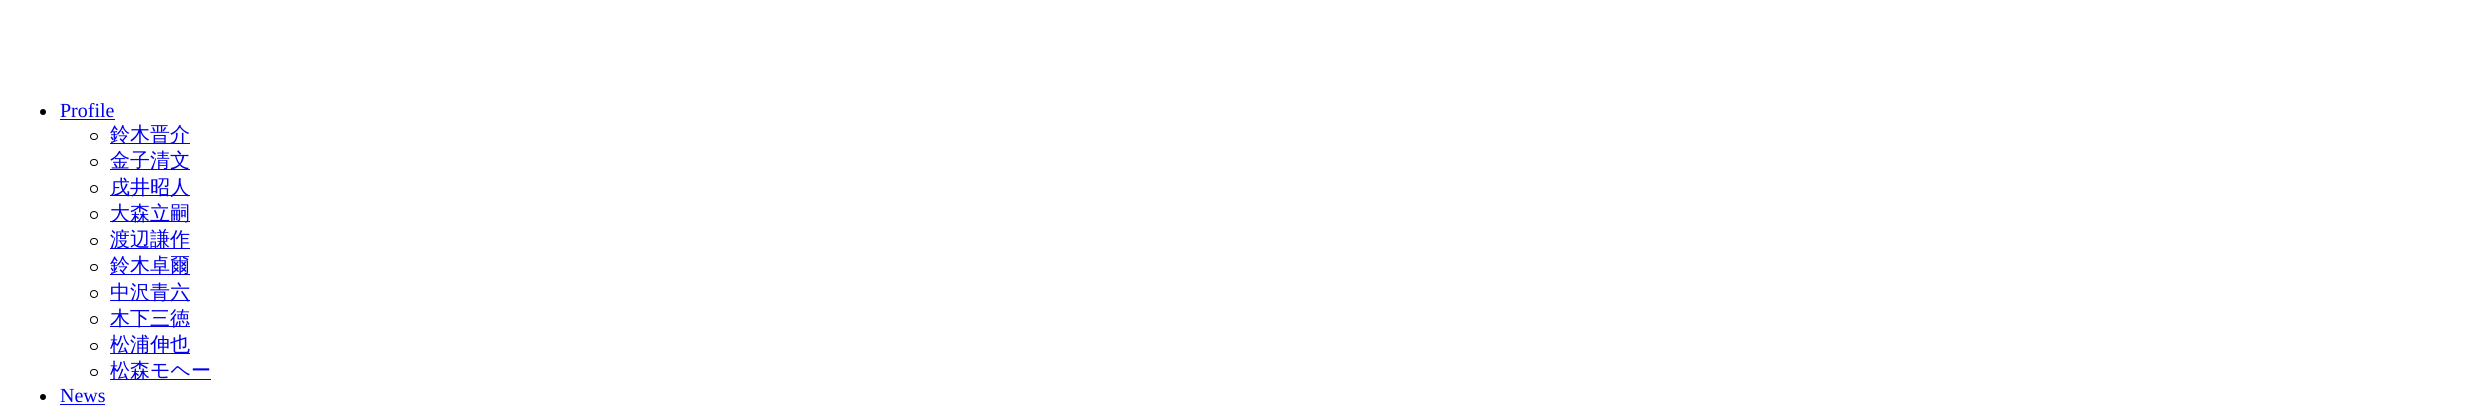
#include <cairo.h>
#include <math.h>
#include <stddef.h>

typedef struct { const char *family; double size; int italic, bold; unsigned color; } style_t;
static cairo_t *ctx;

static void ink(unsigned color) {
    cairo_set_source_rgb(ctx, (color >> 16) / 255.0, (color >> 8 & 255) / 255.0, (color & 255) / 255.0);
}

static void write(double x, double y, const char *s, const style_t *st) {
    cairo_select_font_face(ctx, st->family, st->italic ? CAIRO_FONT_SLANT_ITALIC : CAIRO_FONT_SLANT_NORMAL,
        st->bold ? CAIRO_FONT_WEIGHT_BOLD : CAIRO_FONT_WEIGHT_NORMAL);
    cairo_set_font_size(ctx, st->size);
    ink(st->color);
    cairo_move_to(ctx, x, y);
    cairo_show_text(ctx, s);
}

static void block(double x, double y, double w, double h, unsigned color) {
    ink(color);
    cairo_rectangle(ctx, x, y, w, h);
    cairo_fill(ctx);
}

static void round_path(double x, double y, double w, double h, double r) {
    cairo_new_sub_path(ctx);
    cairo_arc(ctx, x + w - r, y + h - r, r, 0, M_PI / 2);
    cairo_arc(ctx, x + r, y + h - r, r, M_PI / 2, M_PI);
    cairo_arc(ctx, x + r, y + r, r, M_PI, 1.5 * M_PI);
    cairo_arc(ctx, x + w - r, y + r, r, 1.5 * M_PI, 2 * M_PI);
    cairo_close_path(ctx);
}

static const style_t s1 = {"Liberation Serif", 20, 0, 0, 0x0000ee};
static const style_t s2 = {"WenQuanYi Zen Hei Medium", 20, 0, 0, 0x0000ee};

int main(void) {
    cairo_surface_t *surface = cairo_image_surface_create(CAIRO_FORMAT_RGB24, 2484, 412);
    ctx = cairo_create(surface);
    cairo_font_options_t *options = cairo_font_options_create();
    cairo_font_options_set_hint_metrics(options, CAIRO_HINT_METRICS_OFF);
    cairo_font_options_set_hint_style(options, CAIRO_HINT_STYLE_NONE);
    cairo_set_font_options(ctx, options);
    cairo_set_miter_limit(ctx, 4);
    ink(0xffffff);
    cairo_paint(ctx);
    ink(0x000000);
    cairo_arc(ctx, 43, 112, 3, 0, 2 * M_PI);
    cairo_fill(ctx);
    write(60, 117, "Profile", &s1);
    block(60, 119, 55, 1, 0x0000ee);
    round_path(90.5, 133.5, 7, 6, 3);
    ink(0x000000);
    cairo_set_line_width(ctx, 1);
    cairo_stroke(ctx);
    block(110, 143, 80, 1, 0x0000ee);
    write(110, 141, "鈴木晋介", &s2);
    round_path(90.5, 159.5, 7, 6, 3);
    ink(0x000000);
    cairo_stroke(ctx);
    block(110, 169, 80, 1, 0x0000ee);
    write(110, 167, "金子清文", &s2);
    cairo_new_path(ctx);
    cairo_arc(ctx, 94, 189, 3.5, 0, 2 * M_PI);
    ink(0x000000);
    cairo_stroke(ctx);
    block(110, 195, 80, 1, 0x0000ee);
    write(110, 194, "戌井昭人", &s2);
    cairo_new_path(ctx);
    cairo_arc(ctx, 94, 215, 3.5, 0, 2 * M_PI);
    ink(0x000000);
    cairo_stroke(ctx);
    block(110, 221, 80, 1, 0x0000ee);
    write(110, 220, "大森立嗣", &s2);
    round_path(90.5, 238.5, 7, 6, 3);
    ink(0x000000);
    cairo_stroke(ctx);
    block(110, 248, 80, 1, 0x0000ee);
    write(110, 246, "渡辺謙作", &s2);
    round_path(90.5, 264.5, 7, 6, 3);
    ink(0x000000);
    cairo_stroke(ctx);
    block(110, 274, 80, 1, 0x0000ee);
    write(110, 272, "鈴木卓爾", &s2);
    cairo_new_path(ctx);
    cairo_arc(ctx, 94, 294, 3.5, 0, 2 * M_PI);
    ink(0x000000);
    cairo_stroke(ctx);
    block(110, 300, 80, 1, 0x0000ee);
    write(110, 299, "中沢青六", &s2);
    cairo_new_path(ctx);
    cairo_arc(ctx, 94, 320, 3.5, 0, 2 * M_PI);
    ink(0x000000);
    cairo_stroke(ctx);
    block(110, 326, 80, 1, 0x0000ee);
    write(110, 325, "木下三徳", &s2);
    round_path(90.5, 343.5, 7, 6, 3);
    ink(0x000000);
    cairo_stroke(ctx);
    block(110, 353, 80, 1, 0x0000ee);
    write(110, 351, "松浦伸也", &s2);
    round_path(90.5, 369.5, 7, 6, 3);
    ink(0x000000);
    cairo_stroke(ctx);
    block(110, 379, 101, 1, 0x0000ee);
    write(110, 377, "松森モヘー", &s2);
    ink(0x000000);
    cairo_new_path(ctx);
    cairo_arc(ctx, 43, 397, 3, 0, 2 * M_PI);
    cairo_fill(ctx);
    write(60, 402, "News", &s1);
    block(60, 404, 45, 1, 0x0000ee);
    cairo_surface_write_to_png(surface, "screenshot.png");
    cairo_font_options_destroy(options);
    cairo_destroy(ctx);
    cairo_surface_destroy(surface);
    return 0;
}
